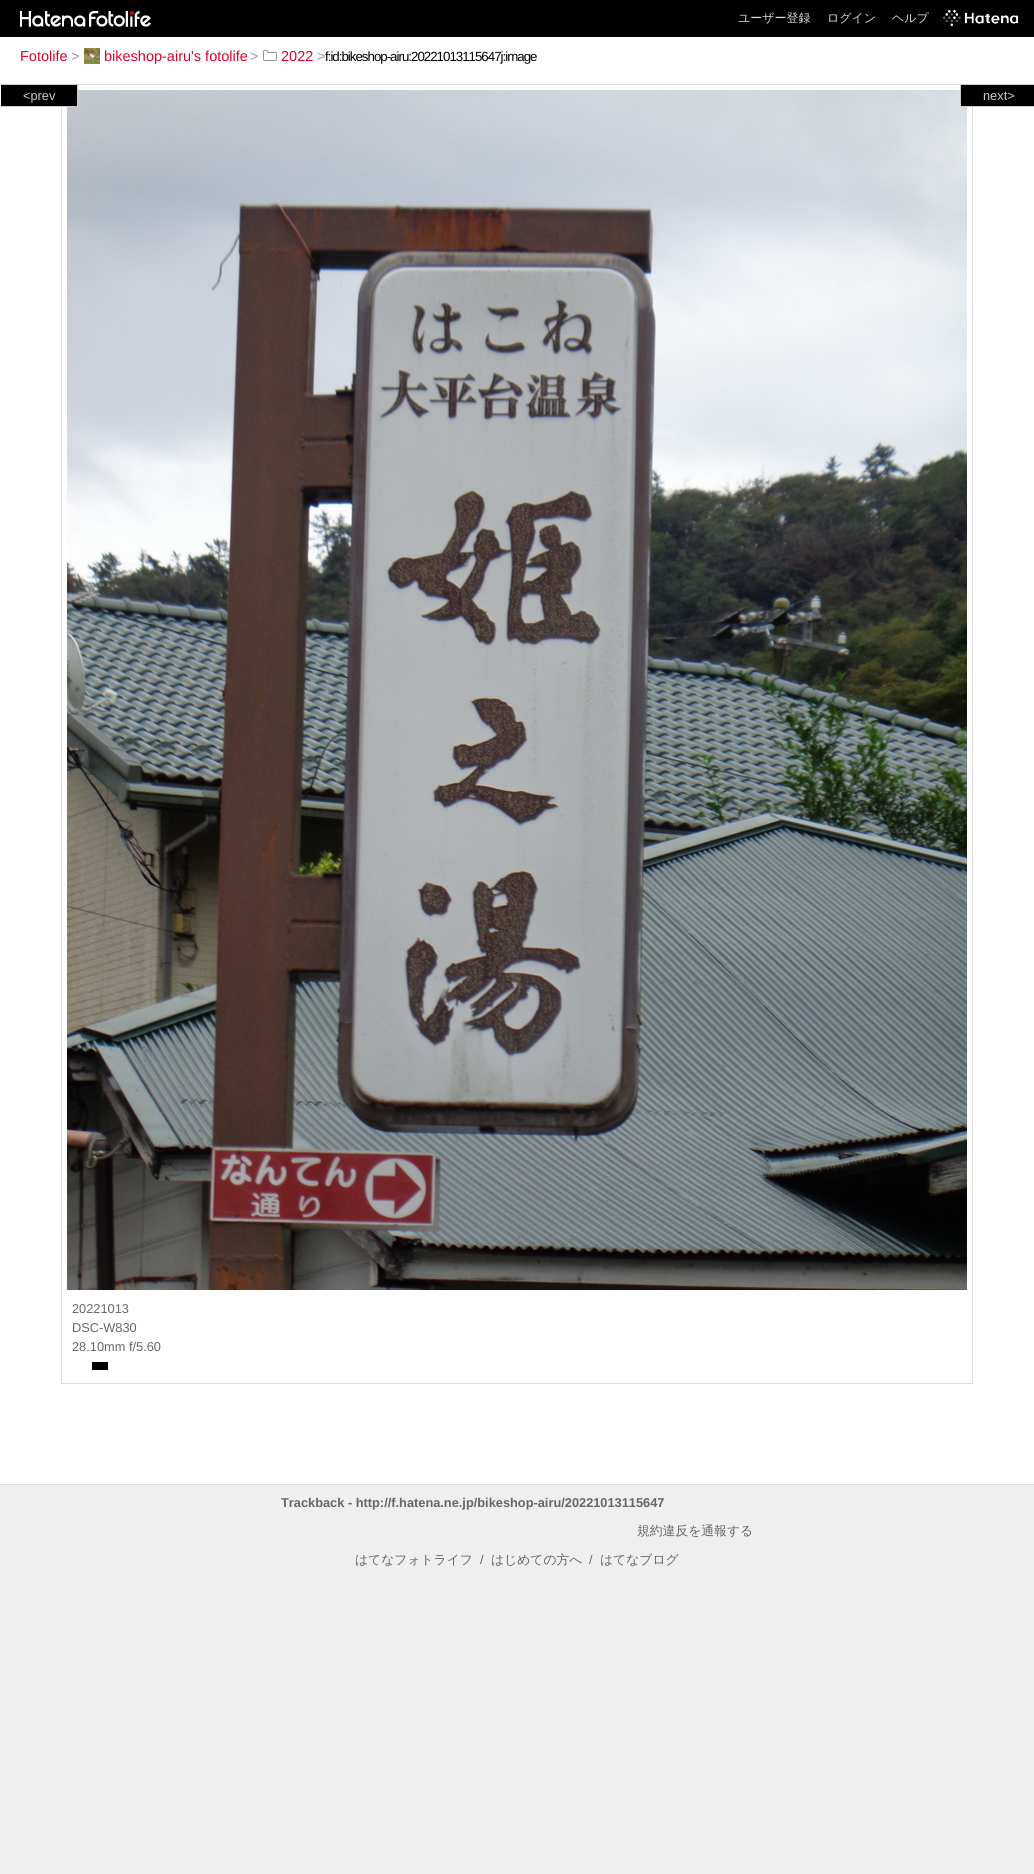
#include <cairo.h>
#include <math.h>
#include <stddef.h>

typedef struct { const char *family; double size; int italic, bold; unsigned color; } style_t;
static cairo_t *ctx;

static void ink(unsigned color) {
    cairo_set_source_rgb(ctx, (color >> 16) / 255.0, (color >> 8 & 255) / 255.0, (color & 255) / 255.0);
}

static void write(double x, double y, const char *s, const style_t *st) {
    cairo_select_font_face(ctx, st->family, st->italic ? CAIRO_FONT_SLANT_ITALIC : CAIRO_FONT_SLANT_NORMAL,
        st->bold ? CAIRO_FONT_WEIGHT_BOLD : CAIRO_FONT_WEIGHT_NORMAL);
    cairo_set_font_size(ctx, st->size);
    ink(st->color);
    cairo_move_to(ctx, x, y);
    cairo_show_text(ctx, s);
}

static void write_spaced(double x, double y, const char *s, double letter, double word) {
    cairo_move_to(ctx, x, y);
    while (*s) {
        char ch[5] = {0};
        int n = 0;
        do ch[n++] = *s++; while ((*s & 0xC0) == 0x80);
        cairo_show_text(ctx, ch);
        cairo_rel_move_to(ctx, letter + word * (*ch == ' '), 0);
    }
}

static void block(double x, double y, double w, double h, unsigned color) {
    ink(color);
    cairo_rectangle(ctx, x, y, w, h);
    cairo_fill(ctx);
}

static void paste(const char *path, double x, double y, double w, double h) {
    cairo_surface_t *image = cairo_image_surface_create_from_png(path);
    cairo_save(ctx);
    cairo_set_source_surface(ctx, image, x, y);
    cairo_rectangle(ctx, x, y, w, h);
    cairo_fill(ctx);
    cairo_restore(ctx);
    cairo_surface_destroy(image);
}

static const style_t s1 = {"WenQuanYi Zen Hei Medium", 12, 0, 0, 0xdddddd};
static const style_t s2 = {"Liberation Sans", 14.5, 0, 0, 0xde002f};
static const style_t s3 = {"Liberation Sans", 14.5, 0, 0, 0x999999};
static const style_t s4 = {"Liberation Sans", 12.8, 0, 0, 0xcccccc};
static const style_t s5 = {"Liberation Sans", 12.8, 0, 0, 0x666666};
static const style_t s6 = {"Liberation Sans", 12.8, 0, 1, 0x666666};
static const style_t s7 = {"WenQuanYi Zen Hei Medium", 12.8, 0, 0, 0x666666};

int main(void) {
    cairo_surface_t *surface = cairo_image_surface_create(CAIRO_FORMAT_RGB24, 1034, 1874);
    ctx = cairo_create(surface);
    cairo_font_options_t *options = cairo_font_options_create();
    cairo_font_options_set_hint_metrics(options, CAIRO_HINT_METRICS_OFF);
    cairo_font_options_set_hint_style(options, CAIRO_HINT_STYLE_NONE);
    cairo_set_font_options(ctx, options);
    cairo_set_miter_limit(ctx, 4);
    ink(0xefefef);
    cairo_paint(ctx);
    block(0, 0, 1034, 37, 0x000000);
    paste("pic1.png", 20, 11, 66, 16);
    paste("pic2.png", 89, 11, 62, 16);
    write(738, 22, "ユーザー登録", &s1);
    write(827, 22, "ログイン", &s1);
    write(892, 22, "ヘルプ", &s1);
    paste("pic3.png", 943, 10, 75, 16);
    block(0, 37, 1034, 1447, 0xffffff);
    write(20, 61, "Fotolife", &s2);
    write(71, 61, ">", &s3);
    paste("pic4.png", 84, 48, 16, 16);
    write(104, 61, "bikeshop-airu's fotolife", &s2);
    write(250, 61, ">", &s3);
    paste("pic5.png", 263, 50, 14, 11);
    write(281, 61, "2022", &s2);
    write(317, 61, ">", &s3);
    cairo_set_font_size(ctx, 13.3);
    ink(0x000000);
    write_spaced(325, 61, "f:id:bikeshop-airu:20221013115647j:image", -1, 0);
    block(0, 1484, 1034, 1, 0xdedede);
    cairo_rectangle(ctx, 61.5, 84.5, 911, 1299);
    cairo_set_line_width(ctx, 1);
    cairo_stroke(ctx);
    paste("pic6.png", 67, 90, 900, 1200);
    block(1, 85, 76, 21, 0x000000);
    block(1, 84, 77, 1, 0xcccccc);
    block(77, 84, 1, 23, 0xcccccc);
    block(1, 106, 77, 1, 0xcccccc);
    write(23, 100, "<prev", &s4);
    block(961, 85, 73, 21, 0x000000);
    block(960, 84, 74, 1, 0xcccccc);
    block(960, 106, 74, 1, 0xcccccc);
    block(960, 84, 1, 23, 0xcccccc);
    write(983, 100, "next>", &s4);
    write(72, 1313, "20221013", &s5);
    write(72, 1332, "DSC-W830", &s5);
    write(72, 1351, "28.10mm f/5.60", &s5);
    block(92, 1362, 16, 8, 0x000000);
    write(281, 1507, "Trackback - http://f.hatena.ne.jp/bikeshop-airu/20221013115647", &s6);
    write(637, 1535, "規約違反を通報する", &s7);
    write(355, 1564, "はてなフォトライフ", &s7);
    write(480, 1564, "/", &s5);
    write(491, 1564, "はじめての方へ", &s7);
    write(589, 1564, "/", &s5);
    write(600, 1564, "はてなブログ", &s7);
    cairo_surface_write_to_png(surface, "screenshot.png");
    cairo_font_options_destroy(options);
    cairo_destroy(ctx);
    cairo_surface_destroy(surface);
    return 0;
}
